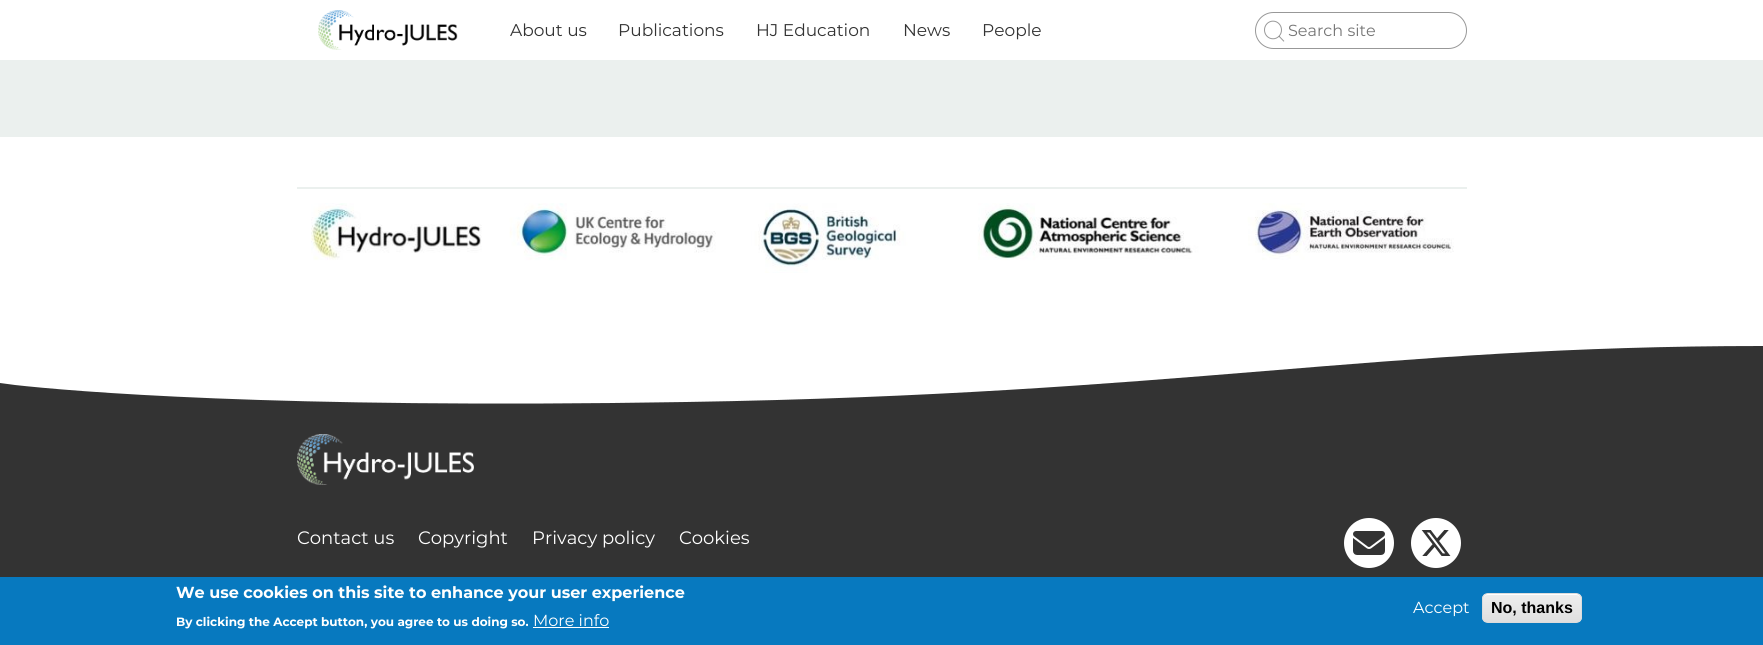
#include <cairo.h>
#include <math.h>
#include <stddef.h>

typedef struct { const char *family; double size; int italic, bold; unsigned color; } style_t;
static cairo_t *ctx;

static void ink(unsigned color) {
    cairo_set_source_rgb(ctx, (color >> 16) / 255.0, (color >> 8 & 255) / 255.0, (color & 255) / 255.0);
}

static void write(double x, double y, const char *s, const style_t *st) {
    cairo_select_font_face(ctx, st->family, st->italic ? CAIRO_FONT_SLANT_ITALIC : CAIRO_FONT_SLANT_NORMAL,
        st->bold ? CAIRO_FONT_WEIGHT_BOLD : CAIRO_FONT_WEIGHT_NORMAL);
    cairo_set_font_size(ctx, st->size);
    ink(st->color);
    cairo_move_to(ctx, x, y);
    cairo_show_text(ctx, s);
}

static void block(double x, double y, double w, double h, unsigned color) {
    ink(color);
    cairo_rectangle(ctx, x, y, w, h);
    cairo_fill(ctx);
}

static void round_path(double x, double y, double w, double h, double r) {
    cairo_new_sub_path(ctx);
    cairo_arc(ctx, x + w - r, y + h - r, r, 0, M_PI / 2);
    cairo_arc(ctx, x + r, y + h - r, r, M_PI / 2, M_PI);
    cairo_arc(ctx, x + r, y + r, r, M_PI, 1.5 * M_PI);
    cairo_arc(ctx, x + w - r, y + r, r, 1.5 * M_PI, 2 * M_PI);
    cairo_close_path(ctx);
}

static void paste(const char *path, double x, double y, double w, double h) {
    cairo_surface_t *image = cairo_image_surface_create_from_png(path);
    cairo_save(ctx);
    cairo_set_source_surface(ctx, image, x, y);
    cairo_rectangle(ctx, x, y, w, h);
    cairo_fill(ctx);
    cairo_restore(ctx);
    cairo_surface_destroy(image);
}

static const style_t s1 = {"Montserrat", 17, 0, 0, 0x333333};
static const style_t s2 = {"Montserrat", 16, 0, 0, 0x757575};
static const style_t s3 = {"Montserrat", 18, 0, 0, 0xffffff};
static const style_t s4 = {"Montserrat", 16, 0, 1, 0xffffff};
static const style_t s5 = {"Montserrat", 12, 0, 1, 0xffffff};
static const style_t s6 = {"Montserrat", 16, 0, 0, 0xffffff};
static const style_t s7 = {"Liberation Sans", 16, 0, 1, 0x000000};

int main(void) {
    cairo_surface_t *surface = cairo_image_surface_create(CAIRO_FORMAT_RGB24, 1763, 645);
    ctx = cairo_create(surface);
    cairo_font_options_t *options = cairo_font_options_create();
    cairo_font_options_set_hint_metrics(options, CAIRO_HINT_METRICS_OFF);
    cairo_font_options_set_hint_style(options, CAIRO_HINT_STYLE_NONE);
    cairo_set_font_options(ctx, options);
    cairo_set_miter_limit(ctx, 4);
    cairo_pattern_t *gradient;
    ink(0xffffff);
    cairo_paint(ctx);
    paste("pic1.png", 318, 10, 140, 40);
    write(510, 36, "About us", &s1);
    write(618, 36, "Publications", &s1);
    write(756, 36, "HJ Education", &s1);
    write(903, 36, "News", &s1);
    write(982, 36, "People", &s1);
    round_path(1255.5, 12.5, 211, 36, 18);
    ink(0x989898);
    cairo_set_line_width(ctx, 1);
    cairo_stroke(ctx);
    paste("pic2.png", 1264, 20, 21, 22);
    write(1288, 36, "Search site", &s2);
    block(0, 60, 1763, 77, 0xebf0ee);
    block(297, 187, 1170, 2, 0xebf0ee);
    paste("pic3.png", 311, 203, 1143, 70);
    block(0, 434, 1763, 143, 0x333333);
    cairo_save(ctx);
    cairo_rectangle(ctx, 0, 346, 1763, 88);
    cairo_clip(ctx);
    cairo_new_path(ctx);
    cairo_move_to(ctx, 15, 385);
    cairo_curve_to(ctx, 69, 391, 271, 409, 686, 402);
    cairo_curve_to(ctx, 933, 398, 1106, 384, 1265, 371);
    cairo_curve_to(ctx, 1424, 358, 1569, 346, 1762, 346);
    cairo_line_to(ctx, 1763, 346);
    cairo_line_to(ctx, 1763, 468);
    cairo_line_to(ctx, 0, 468);
    cairo_line_to(ctx, 0, 383);
    cairo_close_path(ctx);
    cairo_fill(ctx);
    cairo_restore(ctx);
    paste("pic4.png", 297, 434, 177, 51);
    write(297, 544, "Contact us", &s3);
    write(418, 544, "Copyright", &s3);
    write(532, 544, "Privacy policy", &s3);
    write(679, 544, "Cookies", &s3);
    cairo_new_path(ctx);
    cairo_arc(ctx, 1369, 543, 25, 0, 2 * M_PI);
    cairo_fill(ctx);
    paste("pic5.png", 1353, 531, 32, 24);
    cairo_arc(ctx, 1436, 543, 25, 0, 2 * M_PI);
    cairo_fill(ctx);
    paste("pic6.png", 1421, 530, 30, 26);
    block(0, 577, 1763, 68, 0x0779bf);
    write(176, 598, "We use cookies on this site to enhance your user experience", &s4);
    write(176, 626, "By clicking the Accept button, you agree to us doing so.", &s5);
    write(533, 626, "More info", &s6);
    block(533, 627, 76, 1, 0xffffff);
    write(1413, 613, "Accept", &s6);
    cairo_save(ctx);
    round_path(1482, 593, 100, 30, 6);
    cairo_clip(ctx);
    gradient = cairo_pattern_create_linear(1532, 594, 1532, 622);
    cairo_pattern_add_color_stop_rgba(gradient, 0.05, 0.929, 0.929, 0.929, 1);
    cairo_pattern_add_color_stop_rgba(gradient, 1, 0.875, 0.875, 0.875, 1);
    cairo_set_source(ctx, gradient);
    cairo_pattern_destroy(gradient);
    cairo_rectangle(ctx, 1482, 594, 100, 28);
    cairo_fill(ctx);
    cairo_restore(ctx);
    cairo_new_path(ctx);
    cairo_move_to(ctx, 1488, 595);
    cairo_line_to(ctx, 1576, 595);
    cairo_curve_to(ctx, 1579, 595, 1581, 597, 1581, 600);
    cairo_curve_to(ctx, 1581, 590, 1567, 594, 1561, 594);
    cairo_line_to(ctx, 1503, 594);
    cairo_curve_to(ctx, 1497, 594, 1483, 590, 1483, 600);
    cairo_curve_to(ctx, 1483, 597, 1485, 595, 1488, 595);
    cairo_close_path(ctx);
    cairo_fill(ctx);
    round_path(1482.5, 593.5, 99, 29, 5.5);
    ink(0xdcdcdc);
    cairo_stroke(ctx);
    write(1491, 613, "No, thanks", &s7);
    cairo_surface_write_to_png(surface, "screenshot.png");
    cairo_font_options_destroy(options);
    cairo_destroy(ctx);
    cairo_surface_destroy(surface);
    return 0;
}
